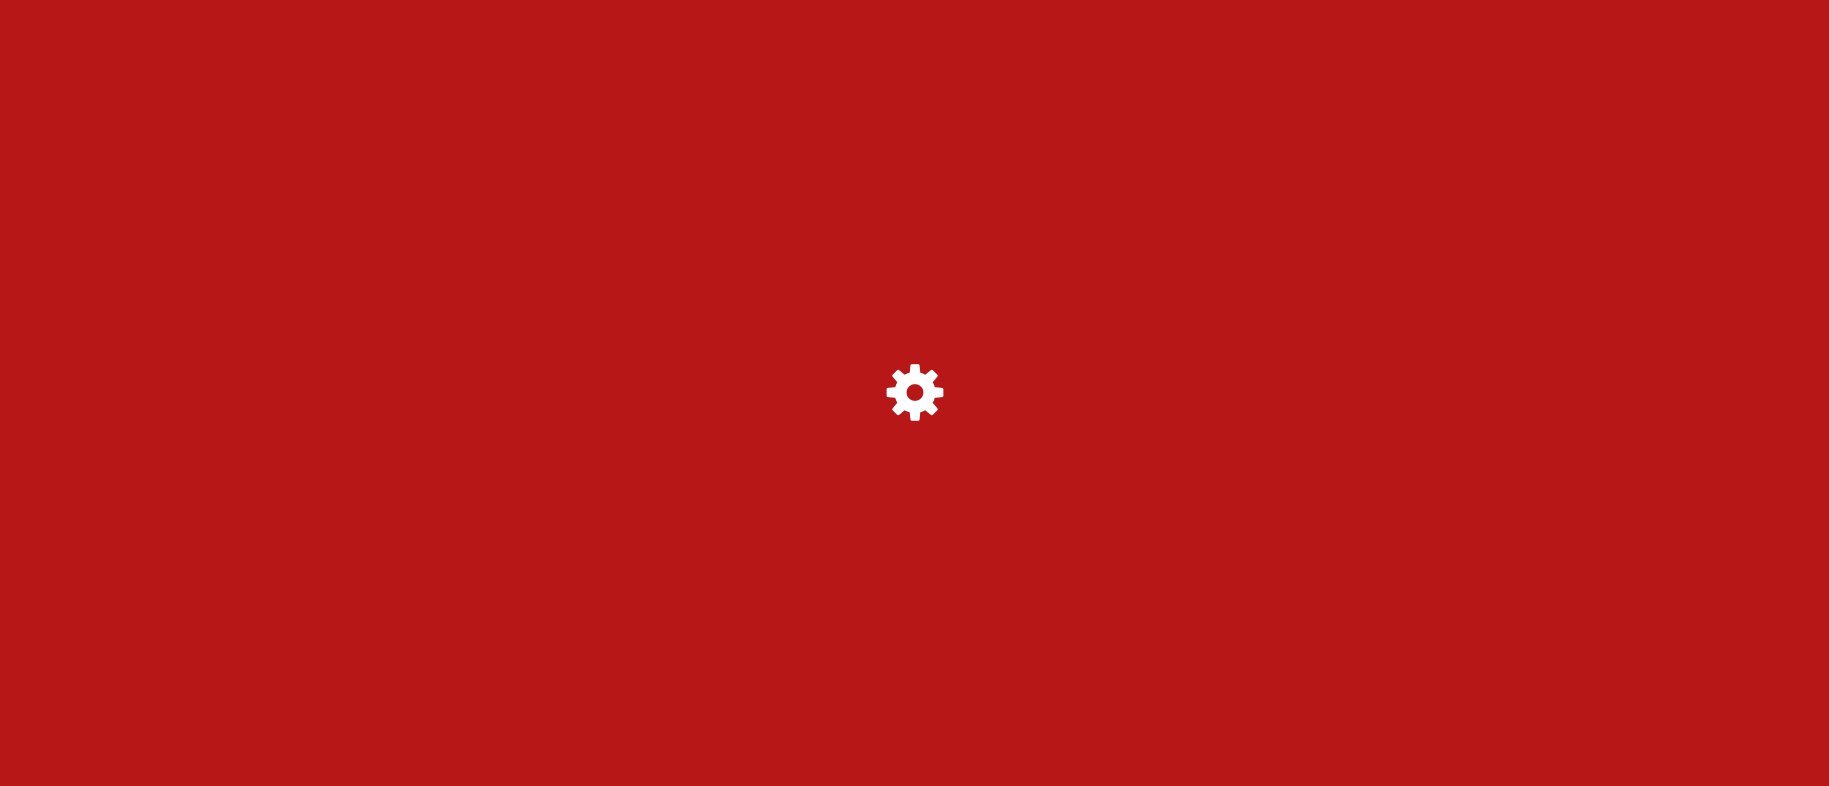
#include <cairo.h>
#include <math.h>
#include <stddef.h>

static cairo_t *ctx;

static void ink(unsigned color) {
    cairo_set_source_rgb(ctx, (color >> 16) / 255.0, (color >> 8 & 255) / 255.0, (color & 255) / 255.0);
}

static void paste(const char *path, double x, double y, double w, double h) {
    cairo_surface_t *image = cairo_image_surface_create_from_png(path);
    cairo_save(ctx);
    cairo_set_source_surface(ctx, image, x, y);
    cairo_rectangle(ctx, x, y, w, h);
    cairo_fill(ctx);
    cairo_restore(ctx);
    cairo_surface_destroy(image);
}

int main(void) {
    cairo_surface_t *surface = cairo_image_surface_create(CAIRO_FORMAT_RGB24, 1829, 786);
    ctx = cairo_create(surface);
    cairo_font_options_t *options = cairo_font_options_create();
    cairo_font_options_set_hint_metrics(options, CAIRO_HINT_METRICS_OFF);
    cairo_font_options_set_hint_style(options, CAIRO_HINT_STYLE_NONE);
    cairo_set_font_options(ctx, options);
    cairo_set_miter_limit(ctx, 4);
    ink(0xb71717);
    cairo_paint(ctx);
    paste("pic1.png", 886, 364, 58, 57);
    cairo_surface_write_to_png(surface, "screenshot.png");
    cairo_font_options_destroy(options);
    cairo_destroy(ctx);
    cairo_surface_destroy(surface);
    return 0;
}
